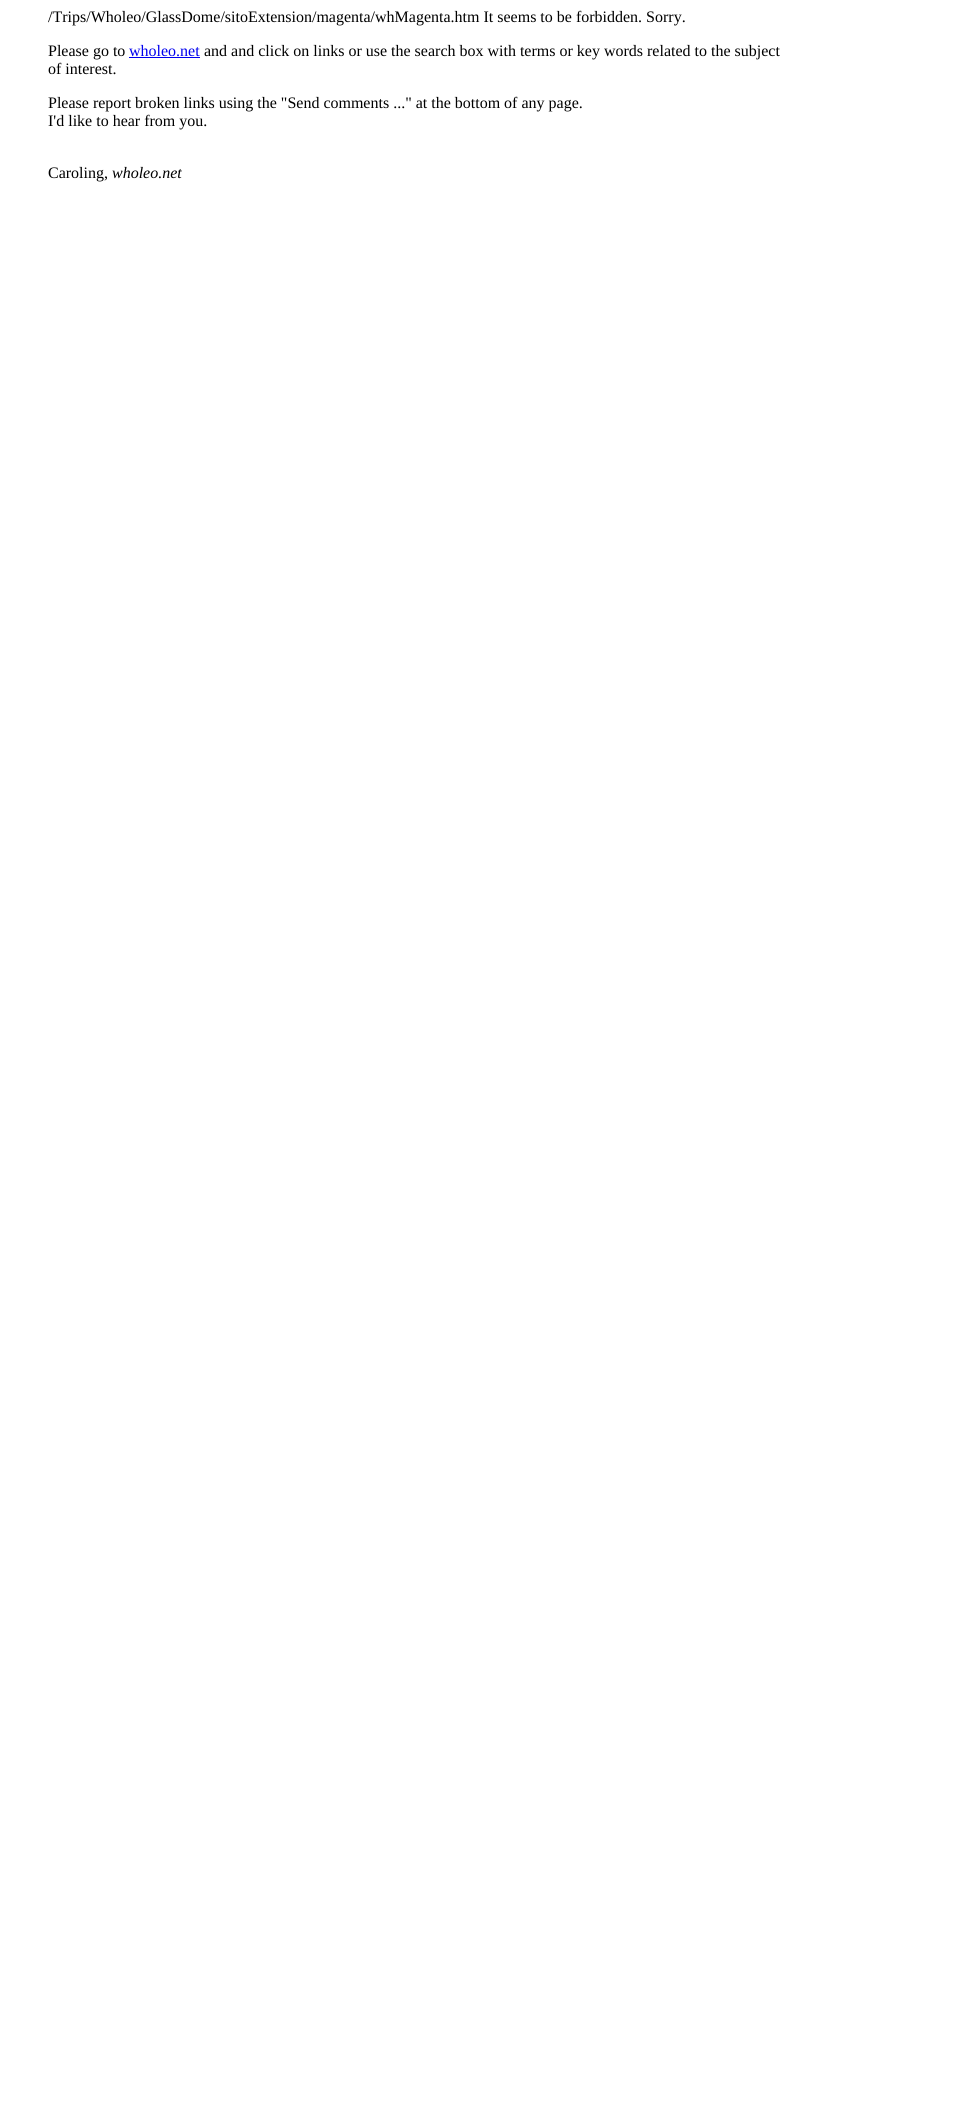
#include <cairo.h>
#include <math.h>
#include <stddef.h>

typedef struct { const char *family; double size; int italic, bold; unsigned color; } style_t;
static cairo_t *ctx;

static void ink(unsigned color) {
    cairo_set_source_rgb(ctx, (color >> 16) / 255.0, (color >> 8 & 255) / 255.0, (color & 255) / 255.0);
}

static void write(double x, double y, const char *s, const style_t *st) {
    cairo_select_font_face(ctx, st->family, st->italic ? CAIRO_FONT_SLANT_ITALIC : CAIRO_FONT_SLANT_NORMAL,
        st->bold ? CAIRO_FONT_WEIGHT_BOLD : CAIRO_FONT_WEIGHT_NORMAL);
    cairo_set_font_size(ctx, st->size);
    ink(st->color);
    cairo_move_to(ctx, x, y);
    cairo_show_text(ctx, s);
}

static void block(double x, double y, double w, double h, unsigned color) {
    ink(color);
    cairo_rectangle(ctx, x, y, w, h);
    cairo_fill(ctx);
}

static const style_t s1 = {"Liberation Serif", 16, 0, 0, 0x000000};
static const style_t s2 = {"Liberation Serif", 16, 0, 0, 0x0000ee};
static const style_t s3 = {"Liberation Serif", 16, 1, 0, 0x000000};

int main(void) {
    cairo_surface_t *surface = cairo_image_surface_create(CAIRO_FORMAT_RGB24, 976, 2104);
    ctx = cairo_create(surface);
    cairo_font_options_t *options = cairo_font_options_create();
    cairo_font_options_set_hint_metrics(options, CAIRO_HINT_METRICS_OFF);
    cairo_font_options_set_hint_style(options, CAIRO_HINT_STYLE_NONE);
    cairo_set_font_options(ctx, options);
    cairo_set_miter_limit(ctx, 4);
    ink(0xffffff);
    cairo_paint(ctx);
    write(48, 22, "/Trips/Wholeo/GlassDome/sitoExtension/magenta/whMagenta.htm It seems to be forbidden. Sorry.", &s1);
    write(48, 56, "Please go to", &s1);
    write(129, 56, "wholeo.net", &s2);
    block(129, 57, 71, 1, 0x0000ee);
    write(204, 56, "and and click on links or use the search box with terms or key words related to the subject", &s1);
    write(48, 74, "of interest.", &s1);
    write(48, 108, "Please report broken links using the \"Send comments ...\" at the bottom of any page.", &s1);
    write(48, 126, "I'd like to hear from you.", &s1);
    write(48, 178, "Caroling,", &s1);
    write(112, 178, "wholeo.net", &s3);
    cairo_surface_write_to_png(surface, "screenshot.png");
    cairo_font_options_destroy(options);
    cairo_destroy(ctx);
    cairo_surface_destroy(surface);
    return 0;
}
